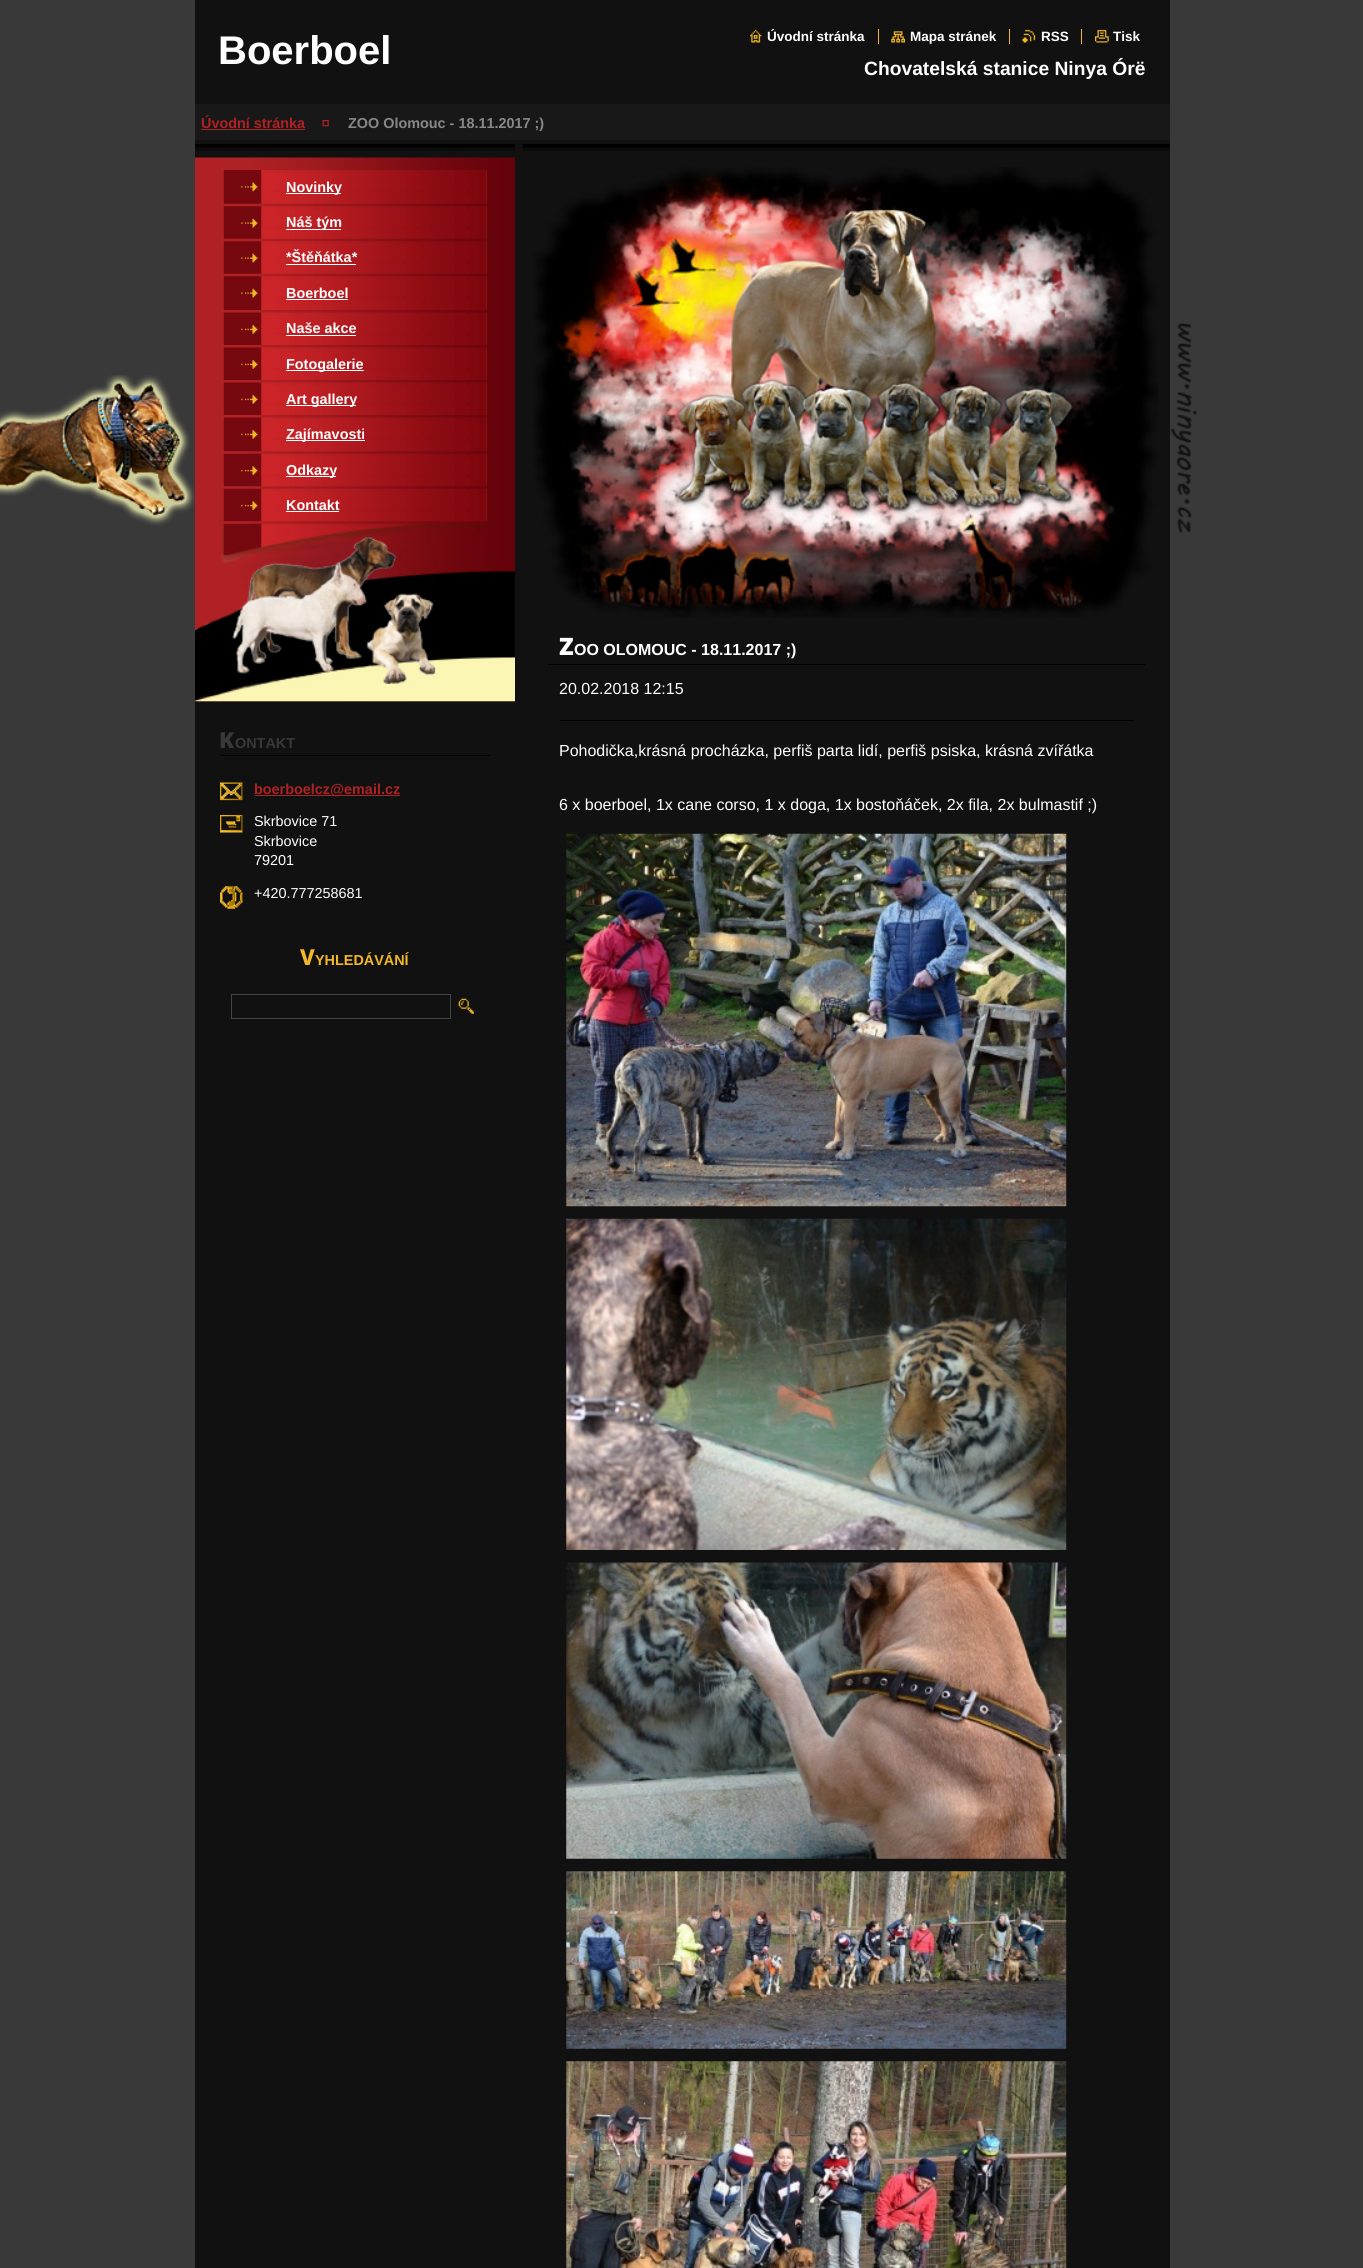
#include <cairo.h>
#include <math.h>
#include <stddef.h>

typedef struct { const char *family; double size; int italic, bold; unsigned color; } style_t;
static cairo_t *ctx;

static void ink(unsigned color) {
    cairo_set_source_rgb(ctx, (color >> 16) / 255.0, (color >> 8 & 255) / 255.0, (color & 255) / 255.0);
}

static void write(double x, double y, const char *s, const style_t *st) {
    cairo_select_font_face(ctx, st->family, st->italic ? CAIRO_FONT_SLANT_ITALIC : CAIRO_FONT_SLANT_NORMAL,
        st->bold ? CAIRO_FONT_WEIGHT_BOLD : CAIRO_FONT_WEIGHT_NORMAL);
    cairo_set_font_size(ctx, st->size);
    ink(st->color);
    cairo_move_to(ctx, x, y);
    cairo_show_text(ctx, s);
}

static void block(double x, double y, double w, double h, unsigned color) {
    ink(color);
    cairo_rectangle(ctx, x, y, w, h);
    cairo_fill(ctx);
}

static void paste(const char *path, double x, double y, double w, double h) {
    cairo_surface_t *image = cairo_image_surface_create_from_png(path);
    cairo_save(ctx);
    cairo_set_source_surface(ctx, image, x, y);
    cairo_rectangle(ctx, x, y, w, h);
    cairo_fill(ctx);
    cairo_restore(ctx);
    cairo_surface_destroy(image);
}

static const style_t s1 = {"Liberation Sans", 40, 0, 1, 0xffffff};
static const style_t s2 = {"Liberation Sans", 13.5, 0, 1, 0xffffff};
static const style_t s3 = {"Liberation Sans", 19.25, 0, 1, 0xffffff};
static const style_t s4 = {"Liberation Sans", 14.4, 0, 1, 0xaf2124};
static const style_t s5 = {"Liberation Sans", 14.4, 0, 1, 0x888888};
static const style_t s6 = {"Liberation Sans", 14.4, 0, 1, 0xffffff};
static const style_t s7 = {"Noto Sans Black", 22, 0, 0, 0x393939};
static const style_t s8 = {"Liberation Sans", 14.4, 0, 1, 0x393939};
static const style_t s9 = {"Liberation Sans", 14.4, 0, 0, 0xffffff};
static const style_t s10 = {"Noto Sans ExtraBold", 22, 0, 0, 0xf2b828};
static const style_t s11 = {"Liberation Sans", 14.4, 0, 1, 0xf2b828};
static const style_t s12 = {"Noto Sans Black", 24, 0, 0, 0xffffff};
static const style_t s13 = {"Liberation Sans", 16, 0, 1, 0xffffff};
static const style_t s14 = {"Liberation Sans", 16, 0, 0, 0xffffff};

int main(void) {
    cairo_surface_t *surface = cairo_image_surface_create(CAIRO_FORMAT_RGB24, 1363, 2268);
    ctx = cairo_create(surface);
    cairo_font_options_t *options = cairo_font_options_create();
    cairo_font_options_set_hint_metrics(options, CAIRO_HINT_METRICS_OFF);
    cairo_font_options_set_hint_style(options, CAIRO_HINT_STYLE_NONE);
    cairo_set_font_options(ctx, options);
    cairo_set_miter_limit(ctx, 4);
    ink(0x393939);
    cairo_paint(ctx);
    paste("pic1.png", 0, 323, 1197, 210);
    block(195, 0, 975, 2268, 0x111111);
    write(218, 64, "Boerboel", &s1);
    paste("pic2.png", 749, 29, 13, 14);
    write(767, 41, "Úvodní stránka", &s2);
    paste("pic3.png", 891, 31, 14, 12);
    write(910, 41, "Mapa stránek", &s2);
    block(878, 29, 1, 15, 0xf2b828);
    paste("pic4.png", 1022, 29, 14, 14);
    write(1041, 41, "RSS", &s2);
    block(1009, 29, 1, 15, 0xf2b828);
    paste("pic5.png", 1095, 29, 14, 14);
    write(1113, 41, "Tisk", &s2);
    block(1081, 29, 1, 15, 0xf2b828);
    write(864, 75, "Chovatelská stanice Ninya Órë", &s3);
    block(195, 104, 975, 36, 0x181818);
    write(201, 128, "Úvodní stránka", &s4);
    block(201, 129, 104, 1, 0xaf2124);
    paste("pic6.png", 322, 120, 7, 7);
    write(348, 128, "ZOO Olomouc - 18.11.2017 ;)", &s5);
    paste("pic7.png", 195, 144, 320, 7);
    paste("pic8.png", 195, 157, 320, 545);
    paste("pic9.png", 223, 170, 264, 34);
    paste("pic10.png", 241, 182, 17, 10);
    block(286, 193, 55, 1, 0xffffff);
    write(286, 192, "Novinky", &s6);
    paste("pic11.png", 223, 206, 264, 33);
    paste("pic12.png", 241, 218, 17, 10);
    block(286, 229, 55, 1, 0xffffff);
    write(286, 227, "Náš tým", &s6);
    paste("pic13.png", 223, 241, 264, 33);
    paste("pic12.png", 241, 253, 17, 10);
    write(286, 262, "*Štěňátka*", &s6);
    block(286, 264, 70, 1, 0xffffff);
    paste("pic14.png", 223, 276, 264, 34);
    paste("pic12.png", 241, 288, 17, 10);
    write(286, 298, "Boerboel", &s6);
    block(286, 299, 62, 1, 0xffffff);
    paste("pic15.png", 223, 312, 264, 33);
    paste("pic16.png", 241, 324, 17, 10);
    write(286, 333, "Naše akce", &s6);
    block(286, 335, 70, 1, 0xffffff);
    paste("pic17.png", 223, 347, 264, 33);
    paste("pic16.png", 241, 359, 17, 10);
    block(286, 370, 78, 1, 0xffffff);
    write(286, 369, "Fotogalerie", &s6);
    paste("pic18.png", 223, 382, 264, 33);
    paste("pic16.png", 241, 394, 17, 10);
    block(286, 405, 70, 1, 0xffffff);
    write(286, 404, "Art gallery", &s6);
    paste("pic19.png", 223, 417, 264, 35);
    paste("pic16.png", 241, 429, 17, 10);
    block(286, 440, 79, 1, 0xffffff);
    write(286, 439, "Zajímavosti", &s6);
    paste("pic20.png", 223, 453, 264, 34);
    paste("pic21.png", 241, 466, 17, 9);
    block(286, 476, 50, 1, 0xffffff);
    write(286, 475, "Odkazy", &s6);
    paste("pic22.png", 223, 488, 264, 34);
    paste("pic21.png", 241, 501, 17, 9);
    write(286, 510, "Kontakt", &s6);
    block(286, 511, 53, 1, 0xffffff);
    paste("pic23.png", 195, 523, 320, 179);
    block(220, 755, 270, 1, 0x000000);
    write(219, 748, "K", &s7);
    write(235, 748, "ONTAKT", &s8);
    paste("pic24.png", 220, 782, 23, 19);
    block(255, 795, 145, 1, 0xaf2124);
    write(254, 794, "boerboelcz@email.cz", &s4);
    paste("pic25.png", 220, 815, 23, 18);
    write(254, 826, "Skrbovice 71", &s9);
    write(254, 846, "Skrbovice", &s9);
    write(254, 865, "79201", &s9);
    paste("pic26.png", 220, 886, 23, 23);
    write(254, 898, "+420.777258681", &s9);
    write(300, 965, "V", &s10);
    write(315, 965, "YHLEDÁVÁNÍ", &s11);
    cairo_rectangle(ctx, 231.5, 994.5, 219, 24);
    ink(0x444444);
    cairo_set_line_width(ctx, 1);
    cairo_stroke(ctx);
    paste("pic27.png", 458, 998, 16, 16);
    paste("pic28.png", 522, 144, 648, 7);
    paste("pic29.png", 533, 167, 625, 451);
    block(548, 664, 597, 1, 0x000000);
    write(559, 655, "Z", &s12);
    write(574, 655, "OO OLOMOUC - 18.11.2017 ;)", &s13);
    write(559, 694, "20.02.2018 12:15", &s14);
    block(560, 720, 573, 1, 0x000000);
    write(559, 756, "Pohodička,krásná procházka, perfiš parta lidí, perfiš psiska, krásná zvířátka", &s14);
    write(559, 810, "6 x boerboel, 1x cane corso, 1 x doga, 1x bostoňáček, 2x fila, 2x bulmastif ;)", &s14);
    paste("pic30.png", 566, 833, 501, 374);
    paste("pic31.png", 566, 1218, 501, 332);
    paste("pic32.png", 566, 1562, 501, 297);
    paste("pic33.png", 566, 1871, 501, 178);
    paste("pic34.png", 566, 2061, 501, 207);
    cairo_surface_write_to_png(surface, "screenshot.png");
    cairo_font_options_destroy(options);
    cairo_destroy(ctx);
    cairo_surface_destroy(surface);
    return 0;
}
